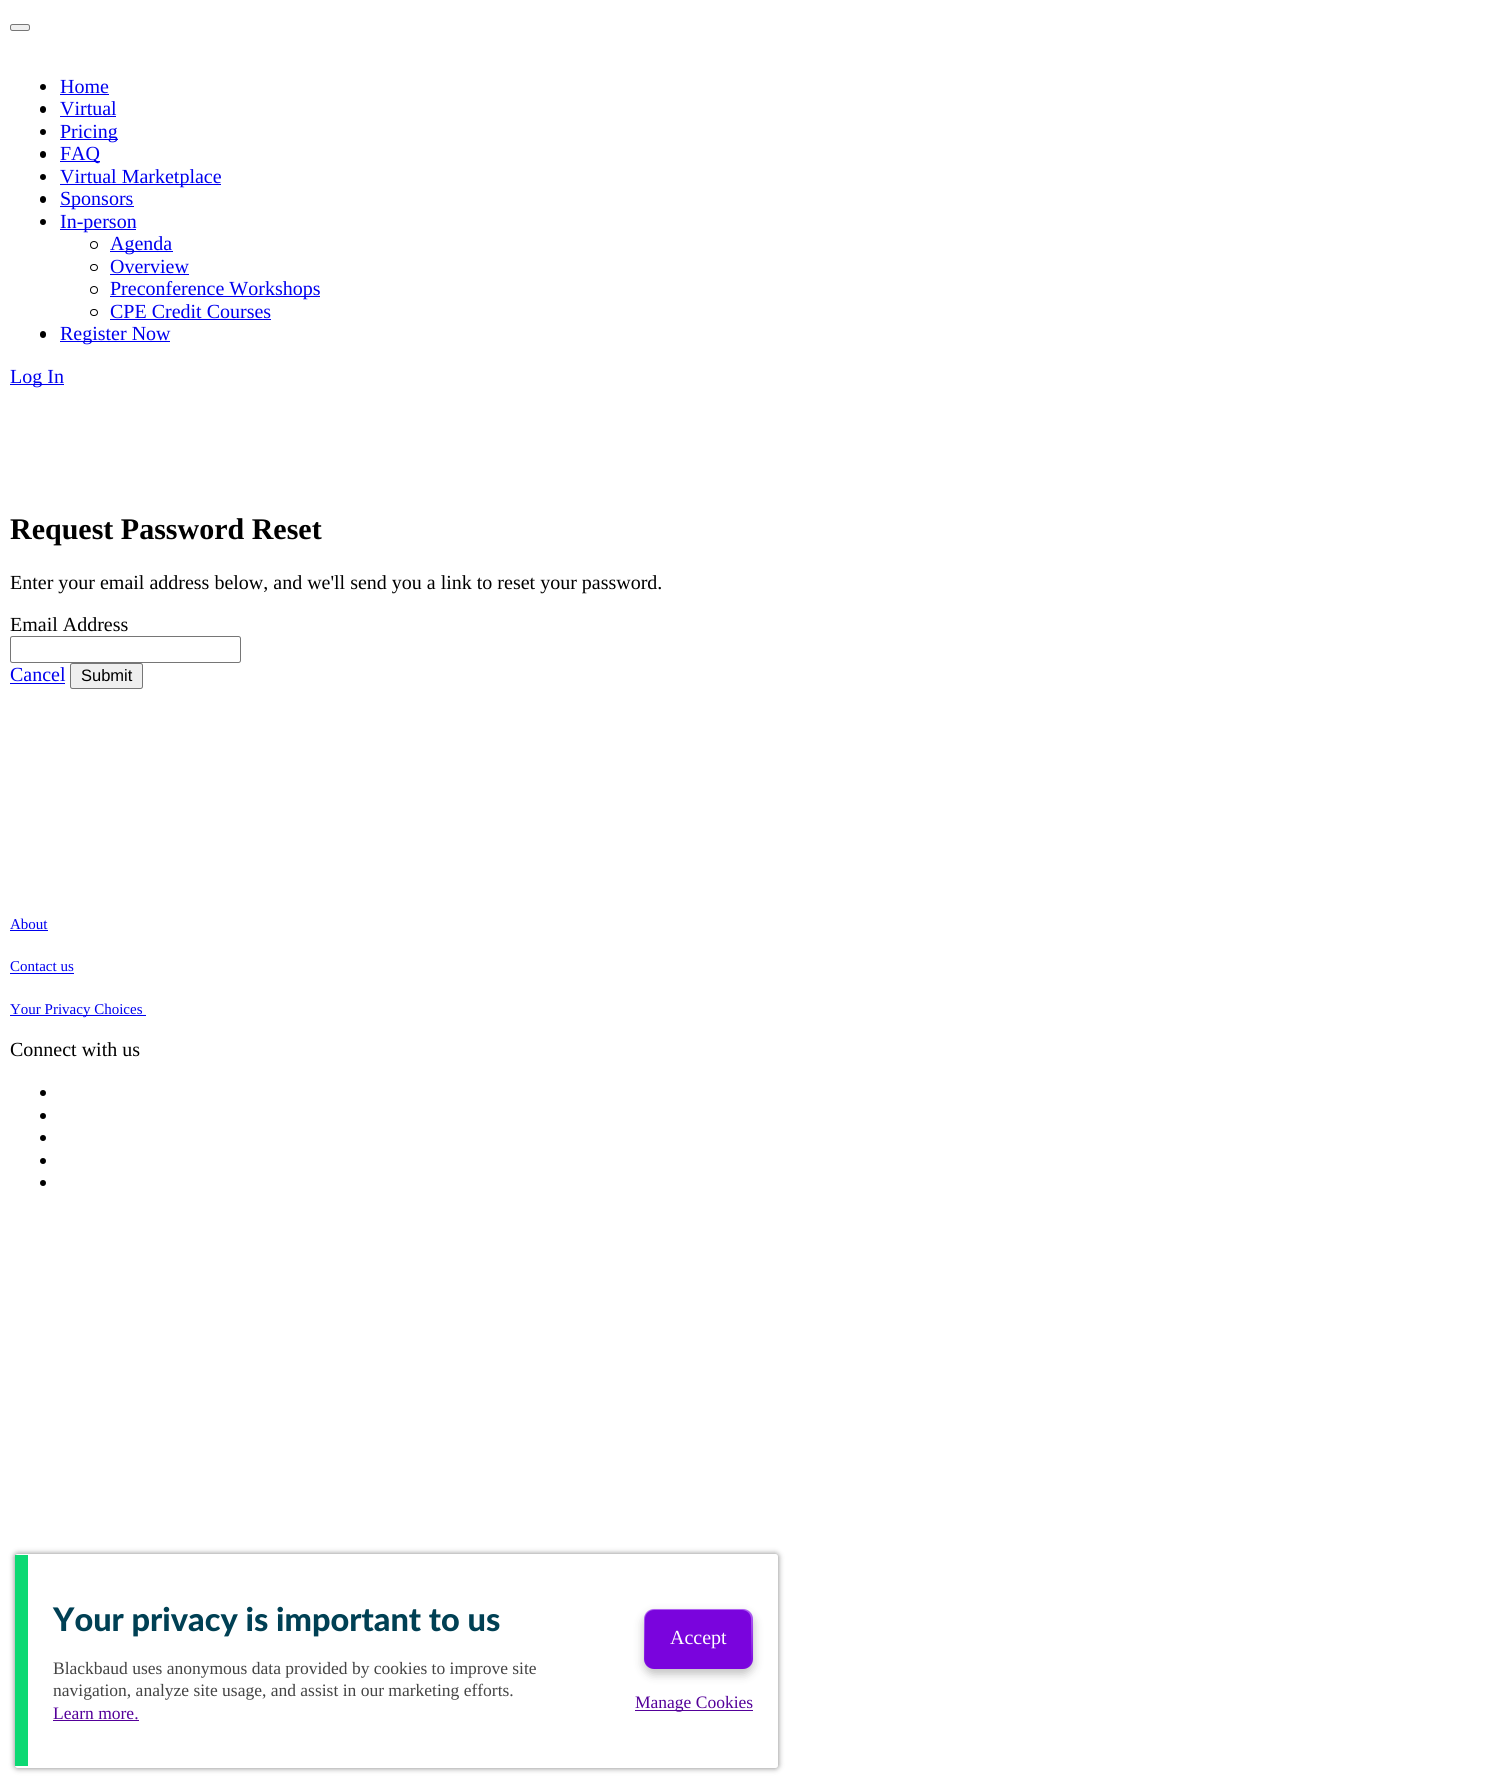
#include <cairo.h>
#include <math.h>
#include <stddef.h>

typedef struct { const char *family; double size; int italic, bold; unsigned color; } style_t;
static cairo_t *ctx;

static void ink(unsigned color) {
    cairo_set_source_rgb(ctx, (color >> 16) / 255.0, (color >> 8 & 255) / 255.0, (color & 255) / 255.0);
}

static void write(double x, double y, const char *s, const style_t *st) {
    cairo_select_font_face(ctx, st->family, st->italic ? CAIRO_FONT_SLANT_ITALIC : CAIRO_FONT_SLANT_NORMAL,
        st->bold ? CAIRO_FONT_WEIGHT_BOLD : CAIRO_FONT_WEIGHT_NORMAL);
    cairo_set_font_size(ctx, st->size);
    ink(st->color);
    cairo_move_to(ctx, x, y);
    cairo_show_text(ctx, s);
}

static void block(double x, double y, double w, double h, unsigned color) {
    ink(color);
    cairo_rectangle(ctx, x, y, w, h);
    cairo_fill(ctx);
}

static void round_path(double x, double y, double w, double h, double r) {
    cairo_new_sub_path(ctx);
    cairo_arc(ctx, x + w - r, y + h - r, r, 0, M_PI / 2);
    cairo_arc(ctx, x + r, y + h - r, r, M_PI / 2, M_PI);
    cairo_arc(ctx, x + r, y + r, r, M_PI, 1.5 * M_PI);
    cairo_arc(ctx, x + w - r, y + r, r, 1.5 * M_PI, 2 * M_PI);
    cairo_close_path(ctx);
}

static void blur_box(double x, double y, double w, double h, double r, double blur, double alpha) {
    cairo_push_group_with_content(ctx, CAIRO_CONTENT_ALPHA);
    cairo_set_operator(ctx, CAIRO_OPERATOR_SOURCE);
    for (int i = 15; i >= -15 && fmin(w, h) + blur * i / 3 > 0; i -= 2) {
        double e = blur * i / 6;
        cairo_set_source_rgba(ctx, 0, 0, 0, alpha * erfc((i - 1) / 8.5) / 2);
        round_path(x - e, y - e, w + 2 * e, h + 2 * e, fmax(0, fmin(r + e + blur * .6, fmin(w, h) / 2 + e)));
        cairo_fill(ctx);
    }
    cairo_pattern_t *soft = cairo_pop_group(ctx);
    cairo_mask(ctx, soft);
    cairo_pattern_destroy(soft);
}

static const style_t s1 = {"Liberation Serif", 20, 0, 0, 0x0000ee};
static const style_t s2 = {"Liberation Serif", 30, 0, 1, 0x000000};
static const style_t s3 = {"Liberation Serif", 20, 0, 0, 0x000000};
static const style_t s4 = {"Liberation Sans", 16.5, 0, 0, 0x000000};
static const style_t s5 = {"Liberation Serif", 15, 0, 0, 0x0000ee};
static const style_t s6 = {"Lato Black", 32.5, 0, 0, 0x004054};
static const style_t s7 = {"Liberation Serif", 17.5, 0, 0, 0x444444};
static const style_t s8 = {"Liberation Serif", 17.5, 0, 0, 0x540099};
static const style_t s9 = {"Liberation Serif", 20, 0, 0, 0xffffff};

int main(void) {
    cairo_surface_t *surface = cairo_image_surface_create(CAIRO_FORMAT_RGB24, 1512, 1779);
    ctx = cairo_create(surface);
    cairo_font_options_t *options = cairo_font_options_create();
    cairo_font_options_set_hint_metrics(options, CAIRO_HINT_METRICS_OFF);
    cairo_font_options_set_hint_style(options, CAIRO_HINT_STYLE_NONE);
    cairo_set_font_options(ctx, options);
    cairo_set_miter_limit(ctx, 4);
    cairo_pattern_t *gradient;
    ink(0xffffff);
    cairo_paint(ctx);
    ink(0xefefef);
    round_path(10.5, 24.5, 19, 6, 2);
    cairo_fill_preserve(ctx);
    ink(0x767676);
    cairo_set_line_width(ctx, 1);
    cairo_stroke(ctx);
    ink(0x000000);
    cairo_arc(ctx, 43, 87, 3, 0, 2 * M_PI);
    cairo_fill(ctx);
    write(60, 93, "Home", &s1);
    block(60, 94, 49, 1, 0x0000ee);
    ink(0x000000);
    round_path(40, 106, 6, 7, 3);
    cairo_fill(ctx);
    write(60, 115, "Virtual", &s1);
    block(60, 116, 56, 1, 0x0000ee);
    ink(0x000000);
    cairo_new_path(ctx);
    cairo_arc(ctx, 43, 132, 3, 0, 2 * M_PI);
    cairo_fill(ctx);
    block(60, 139, 58, 1, 0x0000ee);
    write(60, 138, "Pricing", &s1);
    ink(0x000000);
    round_path(40, 151, 6, 7, 3);
    cairo_fill(ctx);
    block(60, 161, 40, 1, 0x0000ee);
    write(60, 160, "FAQ", &s1);
    ink(0x000000);
    cairo_new_path(ctx);
    cairo_arc(ctx, 43, 177, 3, 0, 2 * M_PI);
    cairo_fill(ctx);
    block(60, 184, 161, 1, 0x0000ee);
    write(60, 183, "Virtual Marketplace", &s1);
    ink(0x000000);
    round_path(40, 196, 6, 7, 3);
    cairo_fill(ctx);
    block(60, 206, 74, 1, 0x0000ee);
    write(60, 205, "Sponsors", &s1);
    ink(0x000000);
    cairo_new_path(ctx);
    cairo_arc(ctx, 43, 222, 3, 0, 2 * M_PI);
    cairo_fill(ctx);
    block(60, 229, 76, 1, 0x0000ee);
    write(60, 228, "In-person", &s1);
    cairo_new_path(ctx);
    cairo_arc(ctx, 94, 245, 3.5, 0, 2 * M_PI);
    ink(0x000000);
    cairo_stroke(ctx);
    block(110, 251, 63, 1, 0x0000ee);
    write(110, 250, "Agenda", &s1);
    round_path(90.5, 264.5, 7, 6, 3);
    ink(0x000000);
    cairo_stroke(ctx);
    write(110, 273, "Overview", &s1);
    block(110, 274, 79, 1, 0x0000ee);
    cairo_new_path(ctx);
    cairo_arc(ctx, 94, 290, 3.5, 0, 2 * M_PI);
    ink(0x000000);
    cairo_stroke(ctx);
    block(110, 296, 210, 1, 0x0000ee);
    write(110, 295, "Preconference Workshops", &s1);
    round_path(90.5, 309.5, 7, 6, 3);
    ink(0x000000);
    cairo_stroke(ctx);
    write(110, 318, "CPE Credit Courses", &s1);
    block(110, 319, 161, 1, 0x0000ee);
    ink(0x000000);
    round_path(40, 331, 6, 7, 3);
    cairo_fill(ctx);
    block(60, 341, 110, 1, 0x0000ee);
    write(60, 340, "Register Now", &s1);
    block(10, 384, 54, 1, 0x0000ee);
    write(10, 383, "Log In", &s1);
    write(10, 539, "Request Password Reset", &s2);
    write(10, 589, "Enter your email address below, and we'll send you a link to reset your password.", &s3);
    write(10, 631, "Email Address", &s3);
    round_path(10.5, 636.5, 230, 26, 2);
    ink(0x767676);
    cairo_stroke(ctx);
    write(10, 681, "Cancel", &s1);
    block(10, 683, 55, 1, 0x0000ee);
    ink(0xefefef);
    round_path(70.5, 663.5, 72, 25, 2);
    cairo_fill_preserve(ctx);
    ink(0x767676);
    cairo_stroke(ctx);
    write(81, 681, "Submit", &s4);
    write(10, 929, "About", &s5);
    block(10, 930, 38, 1, 0x0000ee);
    write(10, 971, "Contact us", &s5);
    block(10, 973, 64, 1, 0x0000ee);
    block(10, 1015, 136, 1, 0x0000ee);
    write(10, 1014, "Your Privacy Choices", &s5);
    write(10, 1056, "Connect with us", &s3);
    cairo_new_path(ctx);
    cairo_arc(ctx, 43, 1093, 3, 0, 2 * M_PI);
    cairo_fill(ctx);
    cairo_arc(ctx, 43, 1116, 3, 0, 2 * M_PI);
    cairo_fill(ctx);
    cairo_arc(ctx, 43, 1138, 3, 0, 2 * M_PI);
    cairo_fill(ctx);
    cairo_arc(ctx, 43, 1161, 3, 0, 2 * M_PI);
    cairo_fill(ctx);
    cairo_arc(ctx, 43, 1183, 3, 0, 2 * M_PI);
    cairo_fill(ctx);
    ink(0x000000);
    blur_box(15, 1554, 763, 214, 2.5, 3, 0.5);
    ink(0xffffff);
    round_path(15, 1554, 763, 214, 2.5);
    cairo_fill(ctx);
    block(15, 1555, 13, 211, 0x0cd973);
    write(53, 1631, "Your privacy is important to us", &s6);
    write(53, 1674, "Blackbaud uses anonymous data provided by cookies to improve site", &s7);
    write(53, 1696, "navigation, analyze site usage, and assist in our marketing efforts.", &s7);
    write(53, 1719, "Learn more.", &s8);
    block(53, 1720, 86, 1, 0x540099);
    ink(0x000000);
    blur_box(644, 1614, 109, 60, 10, 5, 0.25);
    gradient = cairo_pattern_create_linear(698, 1609, 698, 1669);
    cairo_pattern_add_color_stop_rgba(gradient, 0, 0.69, 0.38, 0.949, 1);
    cairo_pattern_add_color_stop_rgba(gradient, 1, 0.478, 0.016, 0.867, 1);
    cairo_set_source(ctx, gradient);
    cairo_pattern_destroy(gradient);
    round_path(644, 1609, 109, 60, 10);
    cairo_fill(ctx);
    ink(0x7a04dd);
    round_path(645, 1610, 106, 58, 9);
    cairo_fill(ctx);
    write(670, 1644, "Accept", &s9);
    block(635, 1710, 118, 1, 0x540099);
    write(635, 1708, "Manage Cookies", &s8);
    cairo_surface_write_to_png(surface, "screenshot.png");
    cairo_font_options_destroy(options);
    cairo_destroy(ctx);
    cairo_surface_destroy(surface);
    return 0;
}
